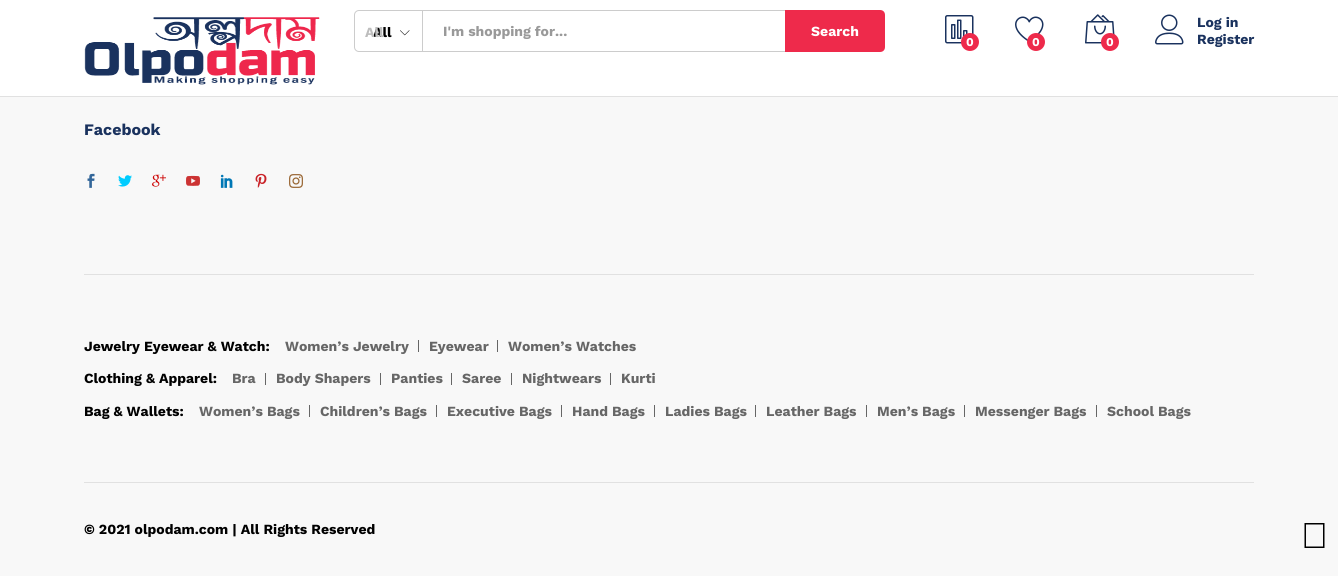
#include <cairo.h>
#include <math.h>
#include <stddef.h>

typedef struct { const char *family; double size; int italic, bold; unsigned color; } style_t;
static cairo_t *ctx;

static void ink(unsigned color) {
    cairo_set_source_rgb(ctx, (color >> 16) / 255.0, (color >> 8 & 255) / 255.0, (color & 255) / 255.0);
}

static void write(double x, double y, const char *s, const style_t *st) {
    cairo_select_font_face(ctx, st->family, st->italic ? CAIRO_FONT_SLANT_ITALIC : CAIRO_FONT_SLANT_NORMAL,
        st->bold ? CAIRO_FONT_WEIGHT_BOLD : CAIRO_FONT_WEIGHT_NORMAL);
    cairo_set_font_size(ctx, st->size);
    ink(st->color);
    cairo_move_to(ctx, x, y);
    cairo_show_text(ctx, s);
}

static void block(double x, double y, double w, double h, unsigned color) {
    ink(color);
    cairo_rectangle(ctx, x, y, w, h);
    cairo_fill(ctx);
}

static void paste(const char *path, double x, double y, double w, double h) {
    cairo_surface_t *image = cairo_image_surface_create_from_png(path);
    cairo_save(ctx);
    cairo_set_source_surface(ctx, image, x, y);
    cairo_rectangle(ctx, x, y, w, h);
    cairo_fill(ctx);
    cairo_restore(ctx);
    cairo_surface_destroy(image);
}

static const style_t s1 = {"Work Sans", 14, 0, 1, 0x000000};
static const style_t s2 = {"Work Sans", 14, 0, 1, 0xbdbdbd};
static const style_t s3 = {"Work Sans", 14, 0, 1, 0x999999};
static const style_t s4 = {"Work Sans", 14, 0, 1, 0xffffff};
static const style_t s5 = {"Work Sans", 12, 0, 1, 0xffffff};
static const style_t s6 = {"Work Sans", 14, 0, 1, 0x1a325e};
static const style_t s7 = {"Work Sans", 16, 0, 1, 0x1a325e};
static const style_t s8 = {"Work Sans", 14, 0, 1, 0x666666};

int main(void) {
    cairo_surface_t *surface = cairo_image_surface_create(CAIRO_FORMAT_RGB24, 1338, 576);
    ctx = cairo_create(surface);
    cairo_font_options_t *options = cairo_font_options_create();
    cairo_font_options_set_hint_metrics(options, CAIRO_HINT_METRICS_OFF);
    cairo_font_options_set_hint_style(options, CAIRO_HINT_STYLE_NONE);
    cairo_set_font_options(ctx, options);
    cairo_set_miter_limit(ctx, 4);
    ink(0xf8f8f8);
    cairo_paint(ctx);
    block(0, 0, 1338, 96, 0xffffff);
    block(0, 96, 1338, 1, 0xe1e1e1);
    paste("pic1.png", 84, 17, 236, 68);
    cairo_new_path(ctx);
    cairo_move_to(ctx, 359, 10.5);
    cairo_line_to(ctx, 422.5, 10.5);
    cairo_line_to(ctx, 422.5, 51.5);
    cairo_line_to(ctx, 359, 51.5);
    cairo_curve_to(ctx, 356.5, 51.5, 354.5, 49.5, 354.5, 47);
    cairo_line_to(ctx, 354.5, 15);
    cairo_curve_to(ctx, 354.5, 12.5, 356.5, 10.5, 359, 10.5);
    cairo_close_path(ctx);
    ink(0xcccccc);
    cairo_set_line_width(ctx, 1);
    cairo_stroke(ctx);
    write(373, 37, "All", &s1);
    write(365, 37, "All", &s2);
    paste("pic2.png", 400, 30, 10, 6);
    block(423, 10, 362, 1, 0xcccccc);
    block(423, 51, 362, 1, 0xcccccc);
    write(443, 36, "I'm shopping for...", &s3);
    ink(0xee2a4b);
    cairo_new_path(ctx);
    cairo_move_to(ctx, 785, 10);
    cairo_line_to(ctx, 880, 10);
    cairo_curve_to(ctx, 883, 10, 885, 12, 885, 15);
    cairo_line_to(ctx, 885, 47);
    cairo_curve_to(ctx, 885, 50, 883, 52, 880, 52);
    cairo_line_to(ctx, 785, 52);
    cairo_close_path(ctx);
    cairo_fill(ctx);
    write(811, 36, "Search", &s4);
    paste("pic3.png", 945, 15, 29, 29);
    ink(0xee2a4b);
    cairo_arc(ctx, 970, 42, 9, 0, 2 * M_PI);
    cairo_fill(ctx);
    write(966, 46, "0", &s5);
    paste("pic4.png", 1015, 16, 29, 26);
    ink(0xee2a4b);
    cairo_arc(ctx, 1036, 42, 9, 0, 2 * M_PI);
    cairo_fill(ctx);
    write(1032, 46, "0", &s5);
    paste("pic5.png", 1085, 14, 30, 30);
    ink(0xee2a4b);
    cairo_arc(ctx, 1110, 42, 9, 0, 2 * M_PI);
    cairo_fill(ctx);
    write(1106, 46, "0", &s5);
    paste("pic6.png", 1155, 14, 29, 31);
    write(1197, 27, "Log in", &s6);
    write(1197, 44, "Register", &s6);
    write(84, 135, "Facebook", &s7);
    paste("pic7.png", 87, 173, 8, 15);
    paste("pic8.png", 118, 175, 14, 12);
    paste("pic9.png", 152, 174, 14, 13);
    paste("pic10.png", 186, 175, 14, 11);
    paste("pic11.png", 220, 174, 13, 14);
    paste("pic12.png", 255, 173, 12, 15);
    paste("pic13.png", 289, 174, 14, 14);
    block(84, 274, 1170, 1, 0xe1e1e1);
    block(84, 482, 1170, 1, 0xe1e1e1);
    write(84, 351, "Jewelry Eyewear & Watch:", &s1);
    write(285, 351, "Women’s Jewelry", &s8);
    block(418, 340, 1, 12, 0x666666);
    write(429, 351, "Eyewear", &s8);
    block(497, 340, 1, 12, 0x666666);
    write(508, 351, "Women’s Watches", &s8);
    write(84, 383, "Clothing & Apparel:", &s1);
    write(232, 383, "Bra", &s8);
    block(265, 373, 1, 12, 0x666666);
    write(276, 383, "Body Shapers", &s8);
    block(380, 373, 1, 12, 0x666666);
    write(391, 383, "Panties", &s8);
    block(451, 373, 1, 12, 0x666666);
    write(462, 383, "Saree", &s8);
    block(511, 373, 1, 12, 0x666666);
    write(522, 383, "Nightwears", &s8);
    block(610, 373, 1, 12, 0x666666);
    write(621, 383, "Kurti", &s8);
    write(84, 416, "Bag & Wallets:", &s1);
    write(199, 416, "Women’s Bags", &s8);
    block(309, 405, 1, 12, 0x666666);
    write(320, 416, "Children’s Bags", &s8);
    block(436, 405, 1, 12, 0x666666);
    write(447, 416, "Executive Bags", &s8);
    block(561, 405, 1, 12, 0x666666);
    write(572, 416, "Hand Bags", &s8);
    block(654, 405, 1, 12, 0x666666);
    write(665, 416, "Ladies Bags", &s8);
    block(755, 405, 1, 12, 0x666666);
    write(766, 416, "Leather Bags", &s8);
    block(866, 405, 1, 12, 0x666666);
    write(877, 416, "Men’s Bags", &s8);
    block(964, 405, 1, 12, 0x666666);
    write(975, 416, "Messenger Bags", &s8);
    block(1096, 405, 1, 12, 0x666666);
    write(1107, 416, "School Bags", &s8);
    write(84, 534, "© 2021 olpodam.com | All Rights Reserved", &s1);
    cairo_new_path(ctx);
    cairo_move_to(ctx, 1304.5, 523);
    cairo_line_to(ctx, 1324.5, 523);
    cairo_line_to(ctx, 1324.5, 548);
    cairo_line_to(ctx, 1304.5, 548);
    cairo_close_path(ctx);
    cairo_move_to(ctx, 1306, 524.5);
    cairo_line_to(ctx, 1306, 546.5);
    cairo_line_to(ctx, 1323, 546.5);
    cairo_line_to(ctx, 1323, 524.5);
    cairo_close_path(ctx);
    cairo_fill(ctx);
    cairo_surface_write_to_png(surface, "screenshot.png");
    cairo_font_options_destroy(options);
    cairo_destroy(ctx);
    cairo_surface_destroy(surface);
    return 0;
}
